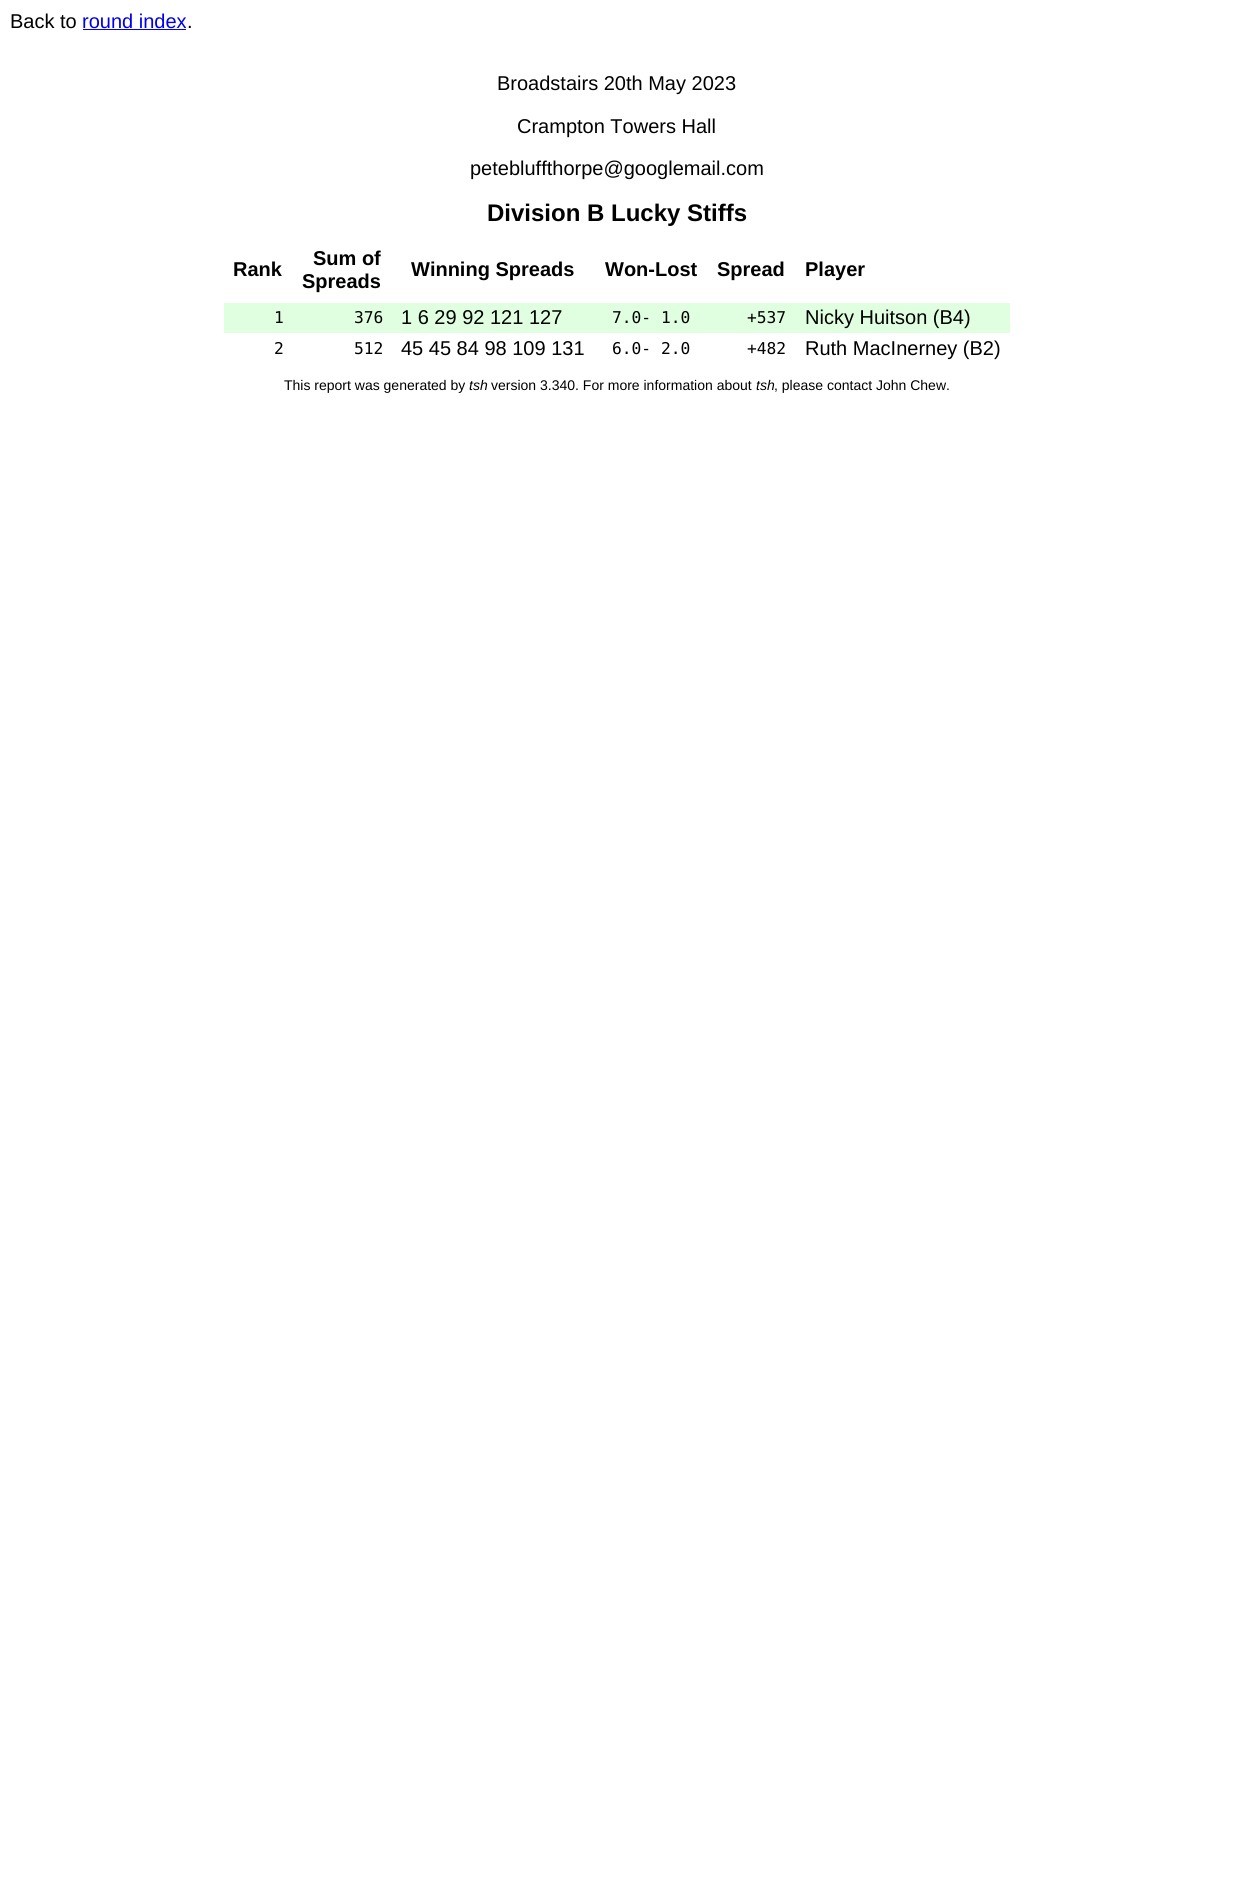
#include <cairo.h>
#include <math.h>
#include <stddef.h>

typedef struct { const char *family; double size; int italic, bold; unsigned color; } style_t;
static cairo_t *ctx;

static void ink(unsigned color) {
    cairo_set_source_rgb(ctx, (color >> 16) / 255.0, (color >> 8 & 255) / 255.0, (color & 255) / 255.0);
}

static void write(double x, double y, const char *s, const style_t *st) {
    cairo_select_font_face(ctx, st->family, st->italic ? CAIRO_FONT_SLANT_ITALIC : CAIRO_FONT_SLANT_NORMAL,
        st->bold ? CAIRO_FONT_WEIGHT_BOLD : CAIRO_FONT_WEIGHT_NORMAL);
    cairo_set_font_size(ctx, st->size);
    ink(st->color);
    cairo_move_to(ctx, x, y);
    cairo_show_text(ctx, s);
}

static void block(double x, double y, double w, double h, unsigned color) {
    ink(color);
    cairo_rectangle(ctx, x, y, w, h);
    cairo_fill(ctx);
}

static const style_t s1 = {"Liberation Sans", 20, 0, 0, 0x000000};
static const style_t s2 = {"Liberation Sans", 20, 0, 0, 0x0000ee};
static const style_t s3 = {"Liberation Sans", 24, 0, 1, 0x000000};
static const style_t s4 = {"Liberation Sans", 20, 0, 1, 0x000000};
static const style_t s5 = {"DejaVu Sans Mono", 16.25, 0, 0, 0x000000};
static const style_t s6 = {"Liberation Sans", 14, 0, 0, 0x000000};
static const style_t s7 = {"Liberation Sans", 14, 1, 0, 0x000000};

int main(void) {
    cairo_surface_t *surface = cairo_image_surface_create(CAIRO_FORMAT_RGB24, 1233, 1892);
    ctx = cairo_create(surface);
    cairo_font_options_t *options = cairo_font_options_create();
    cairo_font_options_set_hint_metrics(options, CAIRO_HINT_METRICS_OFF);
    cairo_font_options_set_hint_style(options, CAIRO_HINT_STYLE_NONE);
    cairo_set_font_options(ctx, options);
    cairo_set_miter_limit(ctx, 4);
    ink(0xffffff);
    cairo_paint(ctx);
    write(10, 28, "Back to", &s1);
    write(82, 28, "round index", &s2);
    block(83, 29, 103, 1, 0x0000ee);
    write(187, 28, ".", &s1);
    write(497, 90, "Broadstairs 20th May 2023", &s1);
    write(517, 133, "Crampton Towers Hall", &s1);
    write(470, 175, "petebluffthorpe@googlemail.com", &s1);
    write(487, 221, "Division B Lucky Stiffs", &s3);
    write(233, 276, "Rank", &s4);
    write(313, 265, "Sum of", &s4);
    write(302, 288, "Spreads", &s4);
    write(411, 276, "Winning Spreads", &s4);
    write(605, 276, "Won-Lost", &s4);
    write(717, 276, "Spread", &s4);
    write(805, 276, "Player", &s4);
    block(224, 303, 786, 30, 0xe0ffe0);
    write(274, 323, "1", &s5);
    write(354, 323, "376", &s5);
    write(401, 324, "1 6 29 92 121 127", &s1);
    write(612, 323, "7.0- 1.0", &s5);
    write(747, 323, "+537", &s5);
    write(805, 324, "Nicky Huitson (B4)", &s1);
    write(274, 354, "2", &s5);
    write(354, 354, "512", &s5);
    write(401, 355, "45 45 84 98 109 131", &s1);
    write(612, 354, "6.0- 2.0", &s5);
    write(747, 354, "+482", &s5);
    write(805, 355, "Ruth MacInerney (B2)", &s1);
    write(284, 390, "This report was generated by", &s6);
    write(469, 390, "tsh", &s7);
    write(491, 390, "version 3.340. For more information about", &s6);
    write(756, 390, "tsh", &s7);
    write(774, 390, ", please contact John Chew.", &s6);
    cairo_surface_write_to_png(surface, "screenshot.png");
    cairo_font_options_destroy(options);
    cairo_destroy(ctx);
    cairo_surface_destroy(surface);
    return 0;
}
